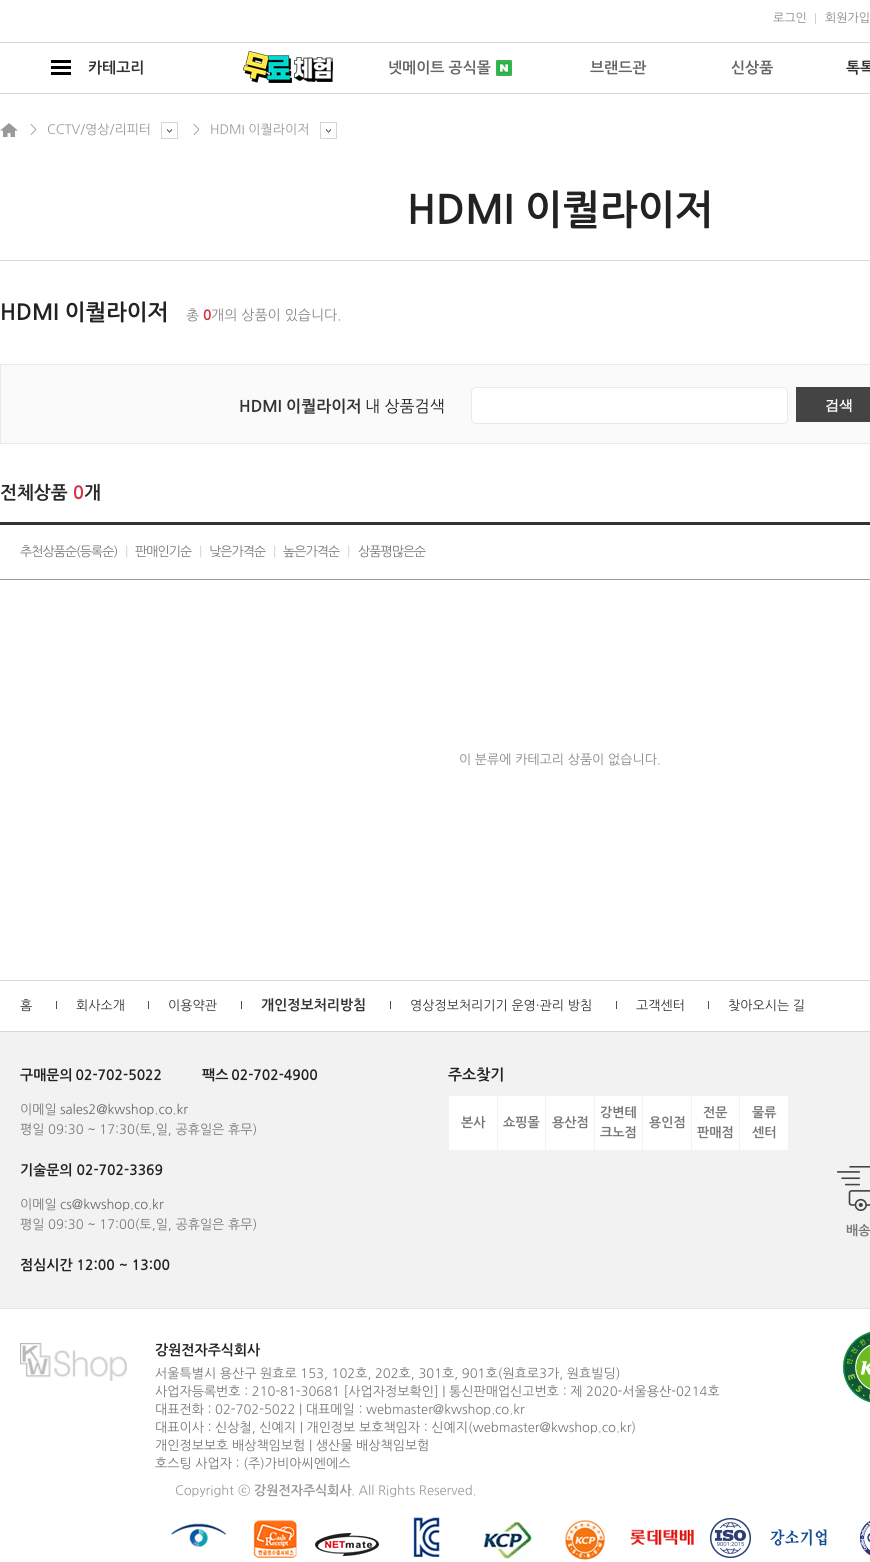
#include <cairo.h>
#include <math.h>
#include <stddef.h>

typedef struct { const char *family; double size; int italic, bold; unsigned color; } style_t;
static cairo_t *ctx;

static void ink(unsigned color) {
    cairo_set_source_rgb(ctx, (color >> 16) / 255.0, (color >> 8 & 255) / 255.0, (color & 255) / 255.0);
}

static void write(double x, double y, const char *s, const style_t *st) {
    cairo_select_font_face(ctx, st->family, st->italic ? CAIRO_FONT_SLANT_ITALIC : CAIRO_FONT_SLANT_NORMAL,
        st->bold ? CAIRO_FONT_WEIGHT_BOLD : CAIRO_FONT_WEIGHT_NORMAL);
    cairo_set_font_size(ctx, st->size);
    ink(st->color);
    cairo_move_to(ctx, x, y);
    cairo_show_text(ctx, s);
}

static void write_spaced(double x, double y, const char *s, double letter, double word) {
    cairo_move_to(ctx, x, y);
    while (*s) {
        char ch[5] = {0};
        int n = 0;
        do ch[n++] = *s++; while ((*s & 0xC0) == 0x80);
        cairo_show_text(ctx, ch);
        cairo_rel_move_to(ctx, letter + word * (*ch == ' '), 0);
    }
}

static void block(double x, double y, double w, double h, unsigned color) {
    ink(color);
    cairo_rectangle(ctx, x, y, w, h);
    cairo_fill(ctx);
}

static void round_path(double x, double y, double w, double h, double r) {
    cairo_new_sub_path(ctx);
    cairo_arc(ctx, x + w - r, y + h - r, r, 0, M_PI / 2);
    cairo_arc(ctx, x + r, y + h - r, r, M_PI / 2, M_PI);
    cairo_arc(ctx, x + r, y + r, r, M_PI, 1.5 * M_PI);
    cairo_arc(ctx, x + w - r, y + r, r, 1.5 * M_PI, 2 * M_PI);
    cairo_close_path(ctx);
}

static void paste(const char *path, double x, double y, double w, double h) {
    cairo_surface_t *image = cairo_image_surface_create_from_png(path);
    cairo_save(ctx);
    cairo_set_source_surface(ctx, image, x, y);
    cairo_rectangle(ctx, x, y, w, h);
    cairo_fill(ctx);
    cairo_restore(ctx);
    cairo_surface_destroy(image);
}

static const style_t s1 = {"NanumGothic", 12, 0, 0, 0x888888};
static const style_t s2 = {"NanumGothic", 15, 0, 1, 0x333333};
static const style_t s3 = {"NanumGothic", 15, 0, 1, 0x666666};
static const style_t s4 = {"NanumGothic", 13, 0, 0, 0x999999};
static const style_t s5 = {"NanumGothic", 40, 0, 1, 0x222222};
static const style_t s6 = {"NanumGothic", 22, 0, 1, 0x222222};
static const style_t s7 = {"NanumGothic", 14, 0, 0, 0x888888};
static const style_t s8 = {"NanumGothic", 14, 0, 1, 0xd92b3e};
static const style_t s9 = {"NanumGothic", 16, 0, 1, 0x333333};
static const style_t s10 = {"NanumGothic", 16, 0, 0, 0x222222};
static const style_t s11 = {"WenQuanYi Zen Hei", 14, 0, 1, 0xffffff};
static const style_t s12 = {"NanumGothic", 18, 0, 1, 0x282828};
static const style_t s13 = {"NanumGothic", 18, 0, 1, 0xd92b3e};
static const style_t s14 = {"NanumGothic", 13, 0, 0, 0x888888};
static const style_t s15 = {"NanumGothic", 13, 0, 0, 0x333333};
static const style_t s16 = {"NanumGothic", 14, 0, 1, 0x333333};
static const style_t s17 = {"NanumGothic", 13, 0, 0, 0x777777};
static const style_t s18 = {"NanumGothic", 13, 0, 0, 0x666666};
static const style_t s19 = {"NanumGothic", 14, 0, 1, 0x222222};
static const style_t s20 = {"NanumGothic", 15, 0, 1, 0x222222};
static const style_t s21 = {"NanumGothic", 13, 0, 1, 0x777777};
static const style_t s22 = {"NanumMyeongjo", 13, 0, 1, 0x999999};
static const style_t s23 = {"NanumGothic", 13, 0, 1, 0x999999};

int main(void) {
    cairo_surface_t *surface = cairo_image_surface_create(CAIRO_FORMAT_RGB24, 870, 1562);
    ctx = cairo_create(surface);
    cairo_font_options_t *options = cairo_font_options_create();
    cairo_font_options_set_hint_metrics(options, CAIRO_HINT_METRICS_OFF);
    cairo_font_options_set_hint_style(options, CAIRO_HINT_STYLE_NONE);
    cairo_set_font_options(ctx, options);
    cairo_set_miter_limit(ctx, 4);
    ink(0xffffff);
    cairo_paint(ctx);
    write(773, 22, "로그인", &s1);
    block(815, 13, 1, 11, 0xd1d1d1);
    write(825, 22, "회원가입", &s1);
    block(0, 42, 870, 1, 0xd6d6d6);
    block(0, 93, 870, 1, 0xd6d6d6);
    paste("pic1.png", 51, 60, 20, 15);
    write(88, 73, "카테고리", &s2);
    paste("pic2.png", 243, 51, 90, 32);
    write(388, 73, "넷메이트 공식몰", &s3);
    paste("pic3.png", 496, 60, 16, 16);
    write(590, 73, "브랜드관", &s3);
    write(731, 73, "신상품", &s3);
    write(846, 73, "톡톡", &s2);
    paste("pic4.png", 0, 123, 18, 14);
    write(30, 134, ">", &s4);
    paste("pic5.png", 161, 122, 17, 17);
    write(47, 134, "CCTV/영상/리피터", &s4);
    write(193, 134, ">", &s4);
    paste("pic5.png", 320, 122, 17, 17);
    write(210, 134, "HDMI 이퀄라이저", &s4);
    block(0, 260, 870, 1, 0xd6d6d6);
    write(407, 224, "HDMI 이퀄라이저", &s5);
    write(0, 320, "HDMI 이퀄라이저", &s6);
    write(186, 320, "총", &s7);
    write(203, 320, "0", &s8);
    write(211, 320, "개의 상품이 있습니다.", &s7);
    ink(0xfafafa);
    cairo_rectangle(ctx, 0.5, 364.5, 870, 79);
    cairo_fill_preserve(ctx);
    ink(0xe9e9e9);
    cairo_set_line_width(ctx, 1);
    cairo_stroke(ctx);
    write(239, 412, "HDMI 이퀄라이저", &s9);
    write(365, 412, "내 상품검색", &s10);
    ink(0xffffff);
    round_path(471.5, 387.5, 316, 36, 4.5);
    cairo_fill_preserve(ctx);
    ink(0xe9e9e9);
    cairo_stroke(ctx);
    block(796, 387, 74, 35, 0x444444);
    write(825, 410, "검색", &s11);
    write(0, 499, "전체상품", &s12);
    write(73, 499, "0", &s13);
    write(84, 499, "개", &s12);
    block(0, 522, 870, 3, 0x333333);
    block(0, 579, 870, 1, 0x999999);
    cairo_select_font_face(ctx, "NanumGothic", CAIRO_FONT_SLANT_NORMAL, CAIRO_FONT_WEIGHT_NORMAL);
    cairo_set_font_size(ctx, 13);
    ink(0x777777);
    write_spaced(20, 556, "추천상품순(등록순)", -1, 0);
    ink(0xcfcfcf);
    write_spaced(125, 556, "|", -1, 0);
    ink(0x777777);
    write_spaced(135, 556, "판매인기순", -1, 0);
    ink(0xcfcfcf);
    write_spaced(199, 556, "|", -1, 0);
    ink(0x777777);
    write_spaced(209, 556, "낮은가격순", -1, 0);
    ink(0xcfcfcf);
    write_spaced(273, 556, "|", -1, 0);
    ink(0x777777);
    write_spaced(283, 556, "높은가격순", -1, 0);
    ink(0xcfcfcf);
    write_spaced(347, 556, "|", -1, 0);
    ink(0x777777);
    write_spaced(358, 556, "상품평많은순", -1, 0);
    write(459, 764, "이 분류에 카테고리 상품이 없습니다.", &s14);
    block(0, 980, 870, 1, 0xd6d6d6);
    block(0, 1031, 870, 1, 0xd6d6d6);
    write(20, 1010, "홈", &s15);
    block(56, 1001, 1, 8, 0x505050);
    write(76, 1010, "회사소개", &s15);
    block(148, 1001, 1, 8, 0x505050);
    write(168, 1010, "이용약관", &s15);
    block(241, 1001, 1, 8, 0x505050);
    write(261, 1010, "개인정보처리방침", &s16);
    block(390, 1001, 1, 8, 0x505050);
    write(410, 1010, "영상정보처리기기 운영·관리 방침", &s15);
    block(616, 1001, 1, 8, 0x505050);
    write(636, 1010, "고객센터", &s15);
    block(708, 1001, 1, 8, 0x505050);
    write(728, 1010, "찾아오시는 길", &s15);
    block(0, 1032, 870, 276, 0xf2f2f2);
    block(0, 1308, 870, 1, 0xe5e5e5);
    cairo_select_font_face(ctx, "NanumGothic", CAIRO_FONT_SLANT_NORMAL, CAIRO_FONT_WEIGHT_BOLD);
    cairo_set_font_size(ctx, 14);
    ink(0x222222);
    write_spaced(20, 1080, "구매문의 02-702-5022", 0, -1);
    write_spaced(202, 1080, "팩스 02-702-4900", 0, -1);
    write(20, 1114, "이메일", &s17);
    write(60, 1114, "sales2@kwshop.co.kr", &s18);
    write(20, 1134, "평일 09:30 ~ 17:30(토,일, 공휴일은 휴무)", &s17);
    write(20, 1175, "기술문의 02-702-3369", &s19);
    write(20, 1209, "이메일", &s17);
    write(60, 1209, "cs@kwshop.co.kr", &s18);
    write(20, 1229, "평일 09:30 ~ 17:00(토,일, 공휴일은 휴무)", &s17);
    write(20, 1270, "점심시간 12:00 ~ 13:00", &s19);
    write(448, 1080, "주소찾기", &s20);
    block(449, 1096, 48, 54, 0xffffff);
    write(461, 1127, "본사", &s21);
    block(498, 1096, 47, 54, 0xffffff);
    write(503, 1127, "쇼핑몰", &s21);
    block(546, 1096, 48, 54, 0xffffff);
    write(552, 1127, "용산점", &s21);
    block(595, 1096, 47, 54, 0xffffff);
    write(600, 1117, "강변테", &s21);
    write(600, 1137, "크노점", &s21);
    block(643, 1096, 48, 54, 0xffffff);
    write(649, 1127, "용인점", &s21);
    block(692, 1096, 47, 54, 0xffffff);
    write(703, 1117, "전문", &s21);
    write(697, 1137, "판매점", &s21);
    block(740, 1096, 48, 54, 0xffffff);
    write(752, 1117, "물류", &s21);
    write(752, 1137, "센터", &s21);
    paste("pic6.png", 837, 1166, 33, 45);
    write(846, 1235, "배송", &s21);
    paste("pic7.png", 20, 1343, 107, 38);
    write(155, 1355, "강원전자주식회사", &s19);
    write(155, 1378, "서울특별시 용산구 원효로 153, 102호, 202호, 301호, 901호(원효로3가, 원효빌딩)", &s17);
    write(155, 1396, "사업자등록번호 : 210-81-30681 [사업자정보확인] | 통신판매업신고번호 : 제 2020-서울용산-0214호", &s17);
    write(155, 1414, "대표전화 : 02-702-5022 | 대표메일 : webmaster@kwshop.co.kr", &s17);
    write(155, 1432, "대표이사 : 신상철, 신예지 | 개인정보 보호책임자 : 신예지(webmaster@kwshop.co.kr)", &s17);
    write(155, 1450, "개인정보보호 배상책임보험 | 생산물 배상책임보험", &s17);
    write(155, 1468, "호스팅 사업자 : (주)가비아씨엔에스", &s17);
    write(175, 1495, "Copyright", &s4);
    write(238, 1495, "ⓒ", &s22);
    write(254, 1495, "강원전자주식회사", &s23);
    write(351, 1495, ". All Rights Reserved.", &s4);
    paste("pic8.png", 171, 1523, 55, 24);
    paste("pic9.png", 253, 1520, 44, 38);
    paste("pic10.png", 315, 1533, 64, 23);
    paste("pic11.png", 413, 1517, 27, 40);
    paste("pic12.png", 483, 1519, 49, 41);
    paste("pic13.png", 565, 1520, 41, 40);
    paste("pic14.png", 630, 1529, 64, 16);
    paste("pic15.png", 710, 1518, 41, 40);
    paste("pic16.png", 770, 1529, 57, 17);
    paste("pic17.png", 860, 1520, 10, 36);
    paste("pic18.png", 843, 1332, 27, 71);
    cairo_surface_write_to_png(surface, "screenshot.png");
    cairo_font_options_destroy(options);
    cairo_destroy(ctx);
    cairo_surface_destroy(surface);
    return 0;
}
